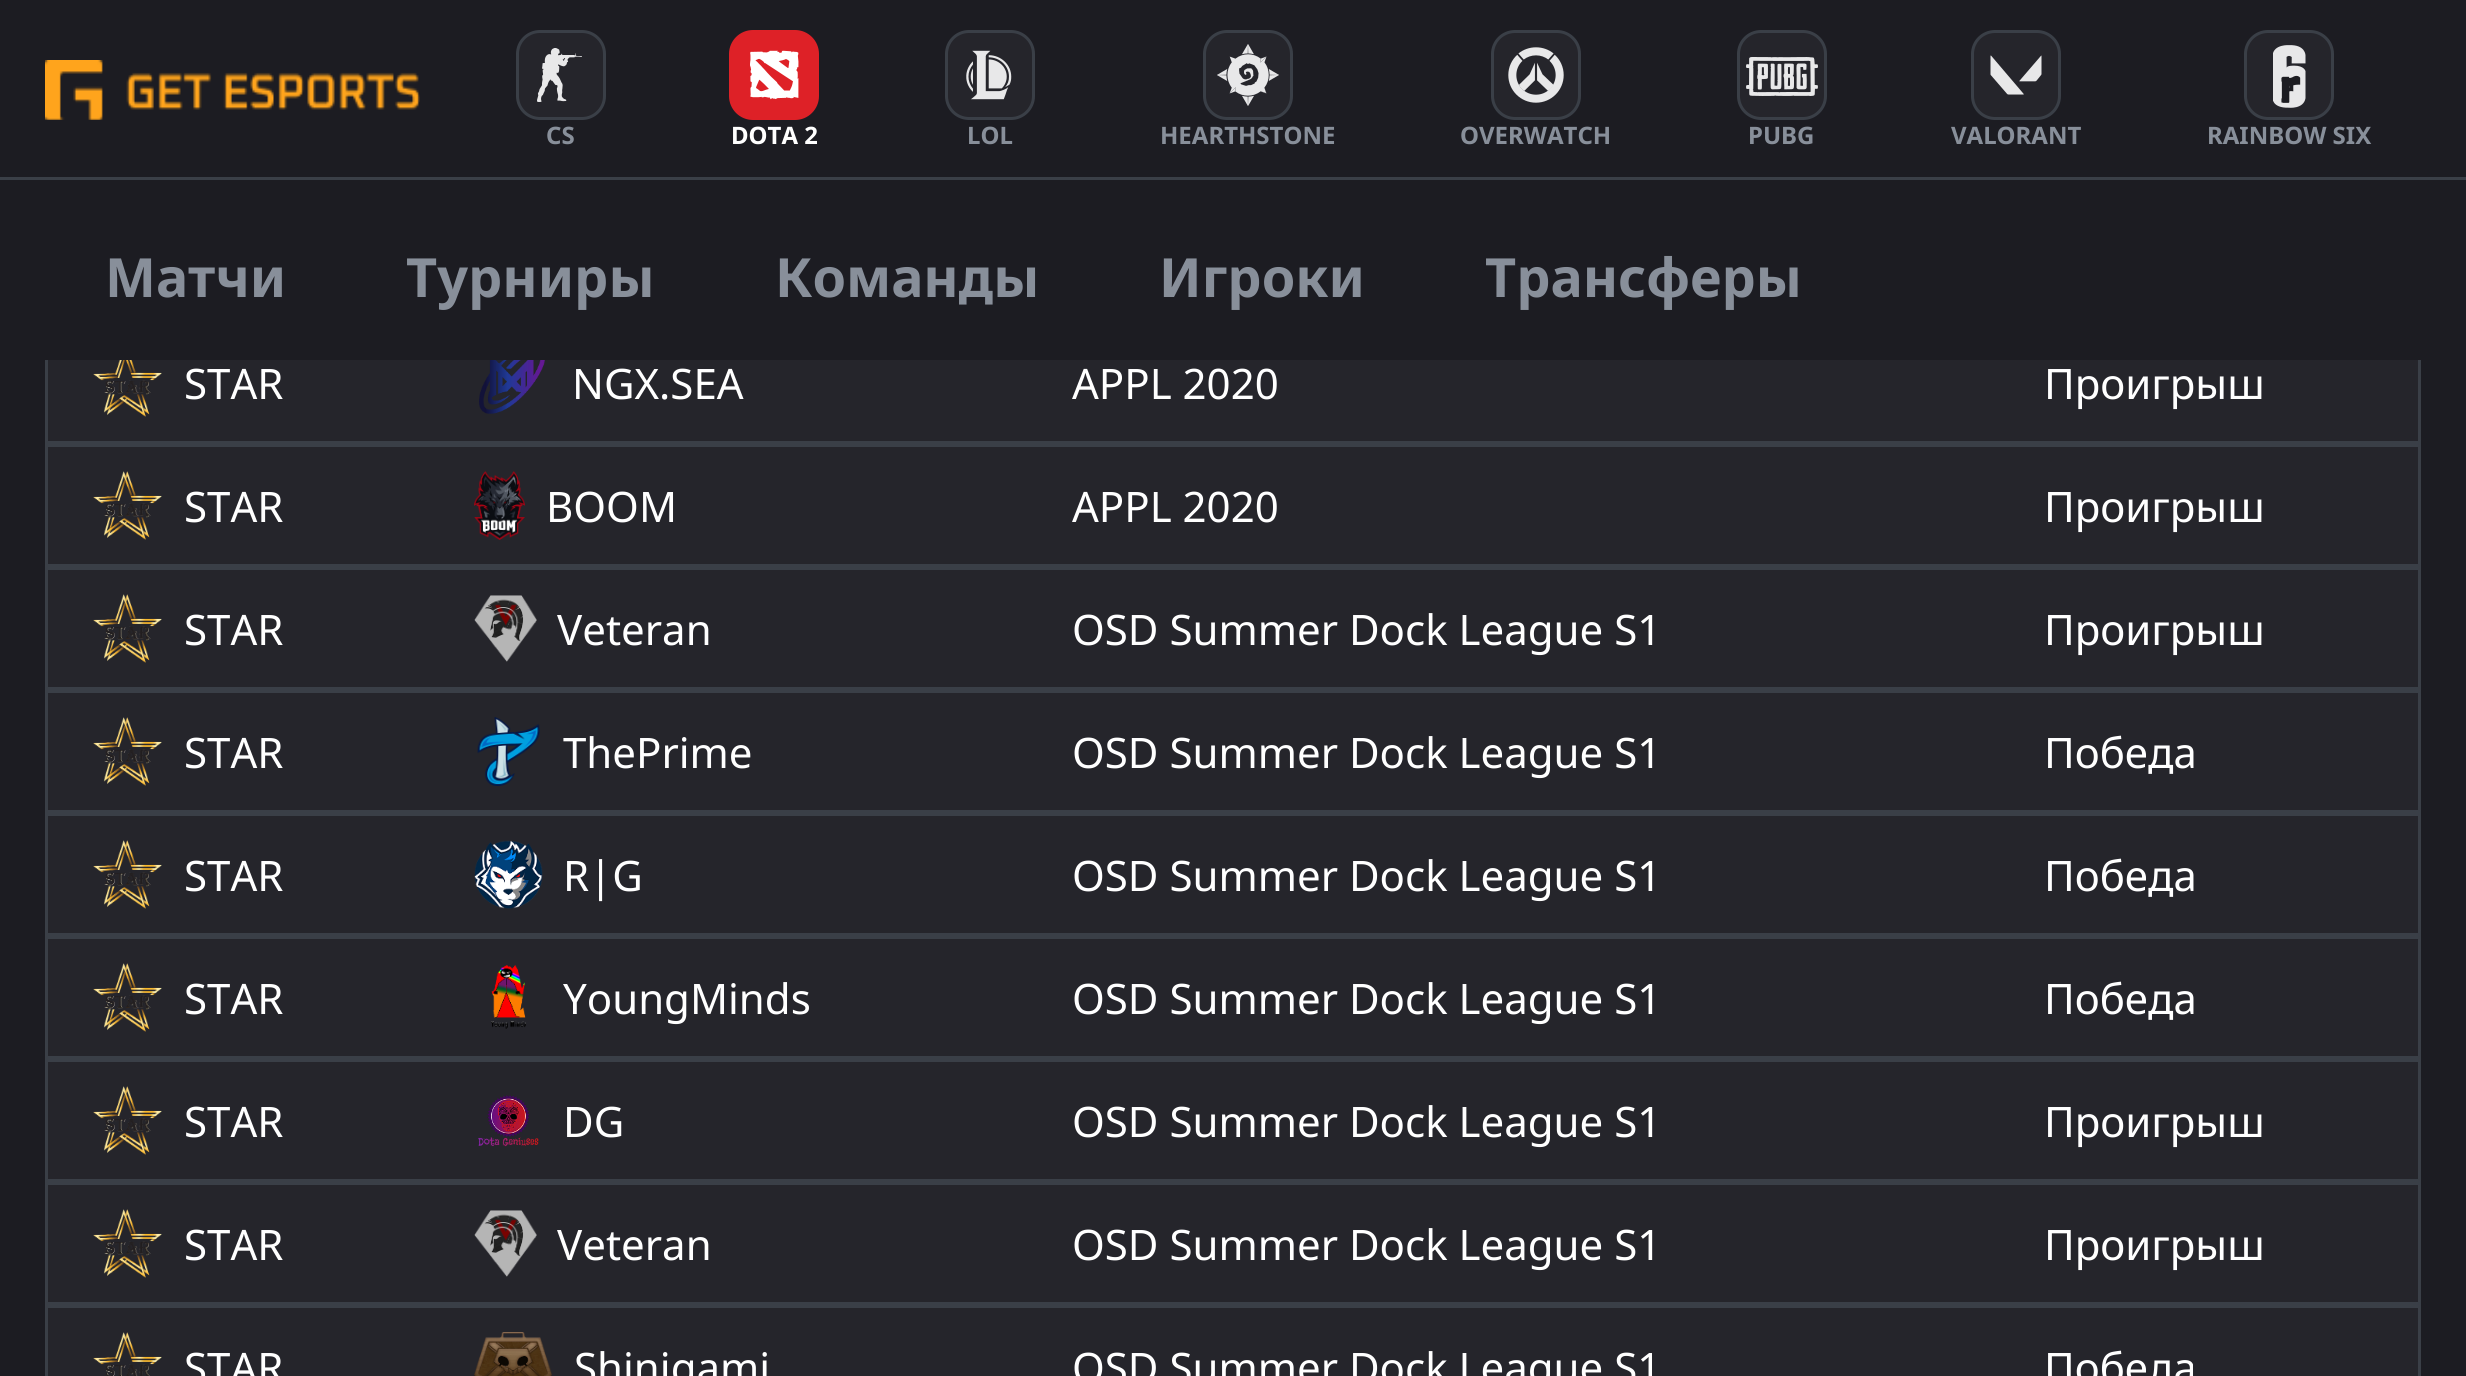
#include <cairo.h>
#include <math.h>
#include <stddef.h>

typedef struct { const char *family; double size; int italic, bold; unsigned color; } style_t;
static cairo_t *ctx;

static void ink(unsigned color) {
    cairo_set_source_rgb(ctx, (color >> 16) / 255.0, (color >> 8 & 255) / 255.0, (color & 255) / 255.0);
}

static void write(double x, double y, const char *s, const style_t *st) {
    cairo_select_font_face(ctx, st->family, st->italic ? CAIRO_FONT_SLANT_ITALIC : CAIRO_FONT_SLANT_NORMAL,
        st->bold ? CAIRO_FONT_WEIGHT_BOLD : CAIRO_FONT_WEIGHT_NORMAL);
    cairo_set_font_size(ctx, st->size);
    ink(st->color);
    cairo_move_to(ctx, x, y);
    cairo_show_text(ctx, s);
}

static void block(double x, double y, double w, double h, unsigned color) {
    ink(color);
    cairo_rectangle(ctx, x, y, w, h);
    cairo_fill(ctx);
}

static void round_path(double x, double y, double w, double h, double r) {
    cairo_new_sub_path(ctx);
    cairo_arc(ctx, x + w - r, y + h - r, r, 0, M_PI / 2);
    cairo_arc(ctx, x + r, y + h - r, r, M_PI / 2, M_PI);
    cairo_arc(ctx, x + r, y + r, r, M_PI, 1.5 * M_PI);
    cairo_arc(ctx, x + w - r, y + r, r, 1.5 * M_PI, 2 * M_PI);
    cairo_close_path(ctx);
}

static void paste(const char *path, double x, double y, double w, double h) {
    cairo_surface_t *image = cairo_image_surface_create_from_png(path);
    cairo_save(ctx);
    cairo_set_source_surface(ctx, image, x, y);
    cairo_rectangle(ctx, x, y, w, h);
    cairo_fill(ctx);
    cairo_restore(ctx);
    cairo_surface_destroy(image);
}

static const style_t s1 = {"Noto Sans", 24, 0, 1, 0xffffff};
static const style_t s2 = {"Noto Sans", 54, 0, 1, 0x888f9a};
static const style_t s3 = {"Noto Sans", 24, 0, 1, 0x888f9a};
static const style_t s4 = {"Noto Sans", 42, 0, 0, 0xffffff};

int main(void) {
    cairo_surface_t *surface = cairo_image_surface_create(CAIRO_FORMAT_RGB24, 2466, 1376);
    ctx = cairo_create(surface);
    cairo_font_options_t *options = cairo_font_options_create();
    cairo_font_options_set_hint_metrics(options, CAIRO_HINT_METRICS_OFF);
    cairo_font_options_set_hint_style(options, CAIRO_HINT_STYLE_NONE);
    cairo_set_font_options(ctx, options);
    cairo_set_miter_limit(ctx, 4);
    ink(0x1c1c22);
    cairo_paint(ctx);
    paste("pic1.png", 45, 60, 375, 60);
    ink(0xde2127);
    round_path(730.5, 31.5, 87, 87, 22.5);
    cairo_fill_preserve(ctx);
    cairo_set_line_width(ctx, 3);
    cairo_stroke(ctx);
    paste("pic2.png", 750, 50, 49, 50);
    write(731, 144, "DOTA 2", &s1);
    block(48, 360, 2370, 81, 0x25252b);
    cairo_rectangle(ctx, 46.5, 322.5, 2373, 120);
    ink(0x3a3f47);
    cairo_stroke(ctx);
    block(45, 321, 2376, 39, 0x1c1c22);
    write(105, 297, "Матчи", &s2);
    write(406, 297, "Турниры", &s2);
    write(775, 297, "Команды", &s2);
    write(1159, 297, "Игроки", &s2);
    write(1485, 297, "Трансферы", &s2);
    ink(0x25252b);
    round_path(517.5, 31.5, 87, 87, 22.5);
    cairo_fill_preserve(ctx);
    ink(0x3a3f47);
    cairo_stroke(ctx);
    paste("pic3.png", 537, 48, 45, 54);
    write(546, 144, "CS", &s3);
    ink(0x25252b);
    round_path(946.5, 31.5, 87, 87, 22.5);
    cairo_fill_preserve(ctx);
    ink(0x3a3f47);
    cairo_stroke(ctx);
    paste("pic4.png", 966, 50, 46, 50);
    write(967, 144, "LOL", &s3);
    ink(0x25252b);
    round_path(1204.5, 31.5, 87, 87, 22.5);
    cairo_fill_preserve(ctx);
    ink(0x3a3f47);
    cairo_stroke(ctx);
    paste("pic5.png", 1217, 44, 62, 62);
    write(1160, 144, "HEARTHSTONE", &s3);
    ink(0x25252b);
    round_path(1492.5, 31.5, 87, 87, 22.5);
    cairo_fill_preserve(ctx);
    ink(0x3a3f47);
    cairo_stroke(ctx);
    paste("pic6.png", 1508, 47, 56, 56);
    write(1460, 144, "OVERWATCH", &s3);
    ink(0x25252b);
    round_path(1738.5, 31.5, 87, 87, 22.5);
    cairo_fill_preserve(ctx);
    ink(0x3a3f47);
    cairo_stroke(ctx);
    paste("pic7.png", 1746, 57, 72, 39);
    write(1748, 144, "PUBG", &s3);
    ink(0x25252b);
    round_path(1972.5, 31.5, 87, 87, 22.5);
    cairo_fill_preserve(ctx);
    ink(0x3a3f47);
    cairo_stroke(ctx);
    paste("pic8.png", 1990, 55, 52, 40);
    write(1951, 144, "VALORANT", &s3);
    ink(0x25252b);
    round_path(2245.5, 31.5, 87, 87, 22.5);
    cairo_fill_preserve(ctx);
    ink(0x3a3f47);
    cairo_stroke(ctx);
    paste("pic9.png", 2273, 45, 33, 63);
    write(2207, 144, "RAINBOW SIX", &s3);
    block(0, 177, 2466, 3, 0x3a3f47);
    paste("pic10.png", 93, 360, 69, 57);
    write(184, 399, "STAR", &s4);
    paste("pic11.png", 479, 360, 66, 54);
    write(572, 399, "NGX.SEA", &s4);
    write(1072, 399, "APPL 2020", &s4);
    write(2044, 399, "Проигрыш", &s4);
    ink(0x25252b);
    cairo_rectangle(ctx, 46.5, 445.5, 2373, 120);
    cairo_fill_preserve(ctx);
    ink(0x3a3f47);
    cairo_stroke(ctx);
    paste("pic12.png", 93, 471, 69, 69);
    write(184, 522, "STAR", &s4);
    paste("pic13.png", 474, 471, 51, 69);
    write(546, 522, "BOOM", &s4);
    write(1072, 522, "APPL 2020", &s4);
    write(2044, 522, "Проигрыш", &s4);
    ink(0x25252b);
    cairo_rectangle(ctx, 46.5, 568.5, 2373, 120);
    cairo_fill_preserve(ctx);
    ink(0x3a3f47);
    cairo_stroke(ctx);
    paste("pic14.png", 93, 594, 69, 69);
    write(184, 645, "STAR", &s4);
    paste("pic15.png", 474, 595, 63, 67);
    write(557, 645, "Veteran", &s4);
    write(1072, 645, "OSD Summer Dock League S1", &s4);
    write(2044, 645, "Проигрыш", &s4);
    ink(0x25252b);
    cairo_rectangle(ctx, 46.5, 691.5, 2373, 120);
    cairo_fill_preserve(ctx);
    ink(0x3a3f47);
    cairo_stroke(ctx);
    paste("pic14.png", 93, 717, 69, 69);
    write(184, 768, "STAR", &s4);
    paste("pic16.png", 477, 717, 63, 69);
    write(563, 768, "ThePrime", &s4);
    write(1072, 768, "OSD Summer Dock League S1", &s4);
    write(2044, 768, "Победа", &s4);
    ink(0x25252b);
    cairo_rectangle(ctx, 46.5, 814.5, 2373, 120);
    cairo_fill_preserve(ctx);
    ink(0x3a3f47);
    cairo_stroke(ctx);
    paste("pic14.png", 93, 840, 69, 69);
    write(184, 891, "STAR", &s4);
    paste("pic17.png", 474, 840, 69, 69);
    write(563, 891, "R|G", &s4);
    write(1072, 891, "OSD Summer Dock League S1", &s4);
    write(2044, 891, "Победа", &s4);
    ink(0x25252b);
    cairo_rectangle(ctx, 46.5, 937.5, 2373, 120);
    cairo_fill_preserve(ctx);
    ink(0x3a3f47);
    cairo_stroke(ctx);
    paste("pic14.png", 93, 963, 69, 69);
    write(184, 1014, "STAR", &s4);
    paste("pic18.png", 491, 964, 35, 65);
    write(563, 1014, "YoungMinds", &s4);
    write(1072, 1014, "OSD Summer Dock League S1", &s4);
    write(2044, 1014, "Победа", &s4);
    ink(0x25252b);
    cairo_rectangle(ctx, 46.5, 1060.5, 2373, 120);
    cairo_fill_preserve(ctx);
    ink(0x3a3f47);
    cairo_stroke(ctx);
    paste("pic14.png", 93, 1086, 69, 69);
    write(184, 1137, "STAR", &s4);
    paste("pic19.png", 478, 1095, 61, 52);
    write(563, 1137, "DG", &s4);
    write(1072, 1137, "OSD Summer Dock League S1", &s4);
    write(2044, 1137, "Проигрыш", &s4);
    ink(0x25252b);
    cairo_rectangle(ctx, 46.5, 1183.5, 2373, 120);
    cairo_fill_preserve(ctx);
    ink(0x3a3f47);
    cairo_stroke(ctx);
    paste("pic14.png", 93, 1209, 69, 69);
    write(184, 1260, "STAR", &s4);
    paste("pic15.png", 474, 1210, 63, 67);
    write(557, 1260, "Veteran", &s4);
    write(1072, 1260, "OSD Summer Dock League S1", &s4);
    write(2044, 1260, "Проигрыш", &s4);
    ink(0x25252b);
    cairo_rectangle(ctx, 46.5, 1306.5, 2373, 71);
    cairo_fill_preserve(ctx);
    ink(0x3a3f47);
    cairo_stroke(ctx);
    paste("pic20.png", 93, 1332, 69, 44);
    write(184, 1383, "STAR", &s4);
    paste("pic21.png", 474, 1332, 78, 44);
    write(574, 1383, "Shinigami", &s4);
    write(1072, 1383, "OSD Summer Dock League S1", &s4);
    write(2044, 1383, "Победа", &s4);
    cairo_surface_write_to_png(surface, "screenshot.png");
    cairo_font_options_destroy(options);
    cairo_destroy(ctx);
    cairo_surface_destroy(surface);
    return 0;
}
